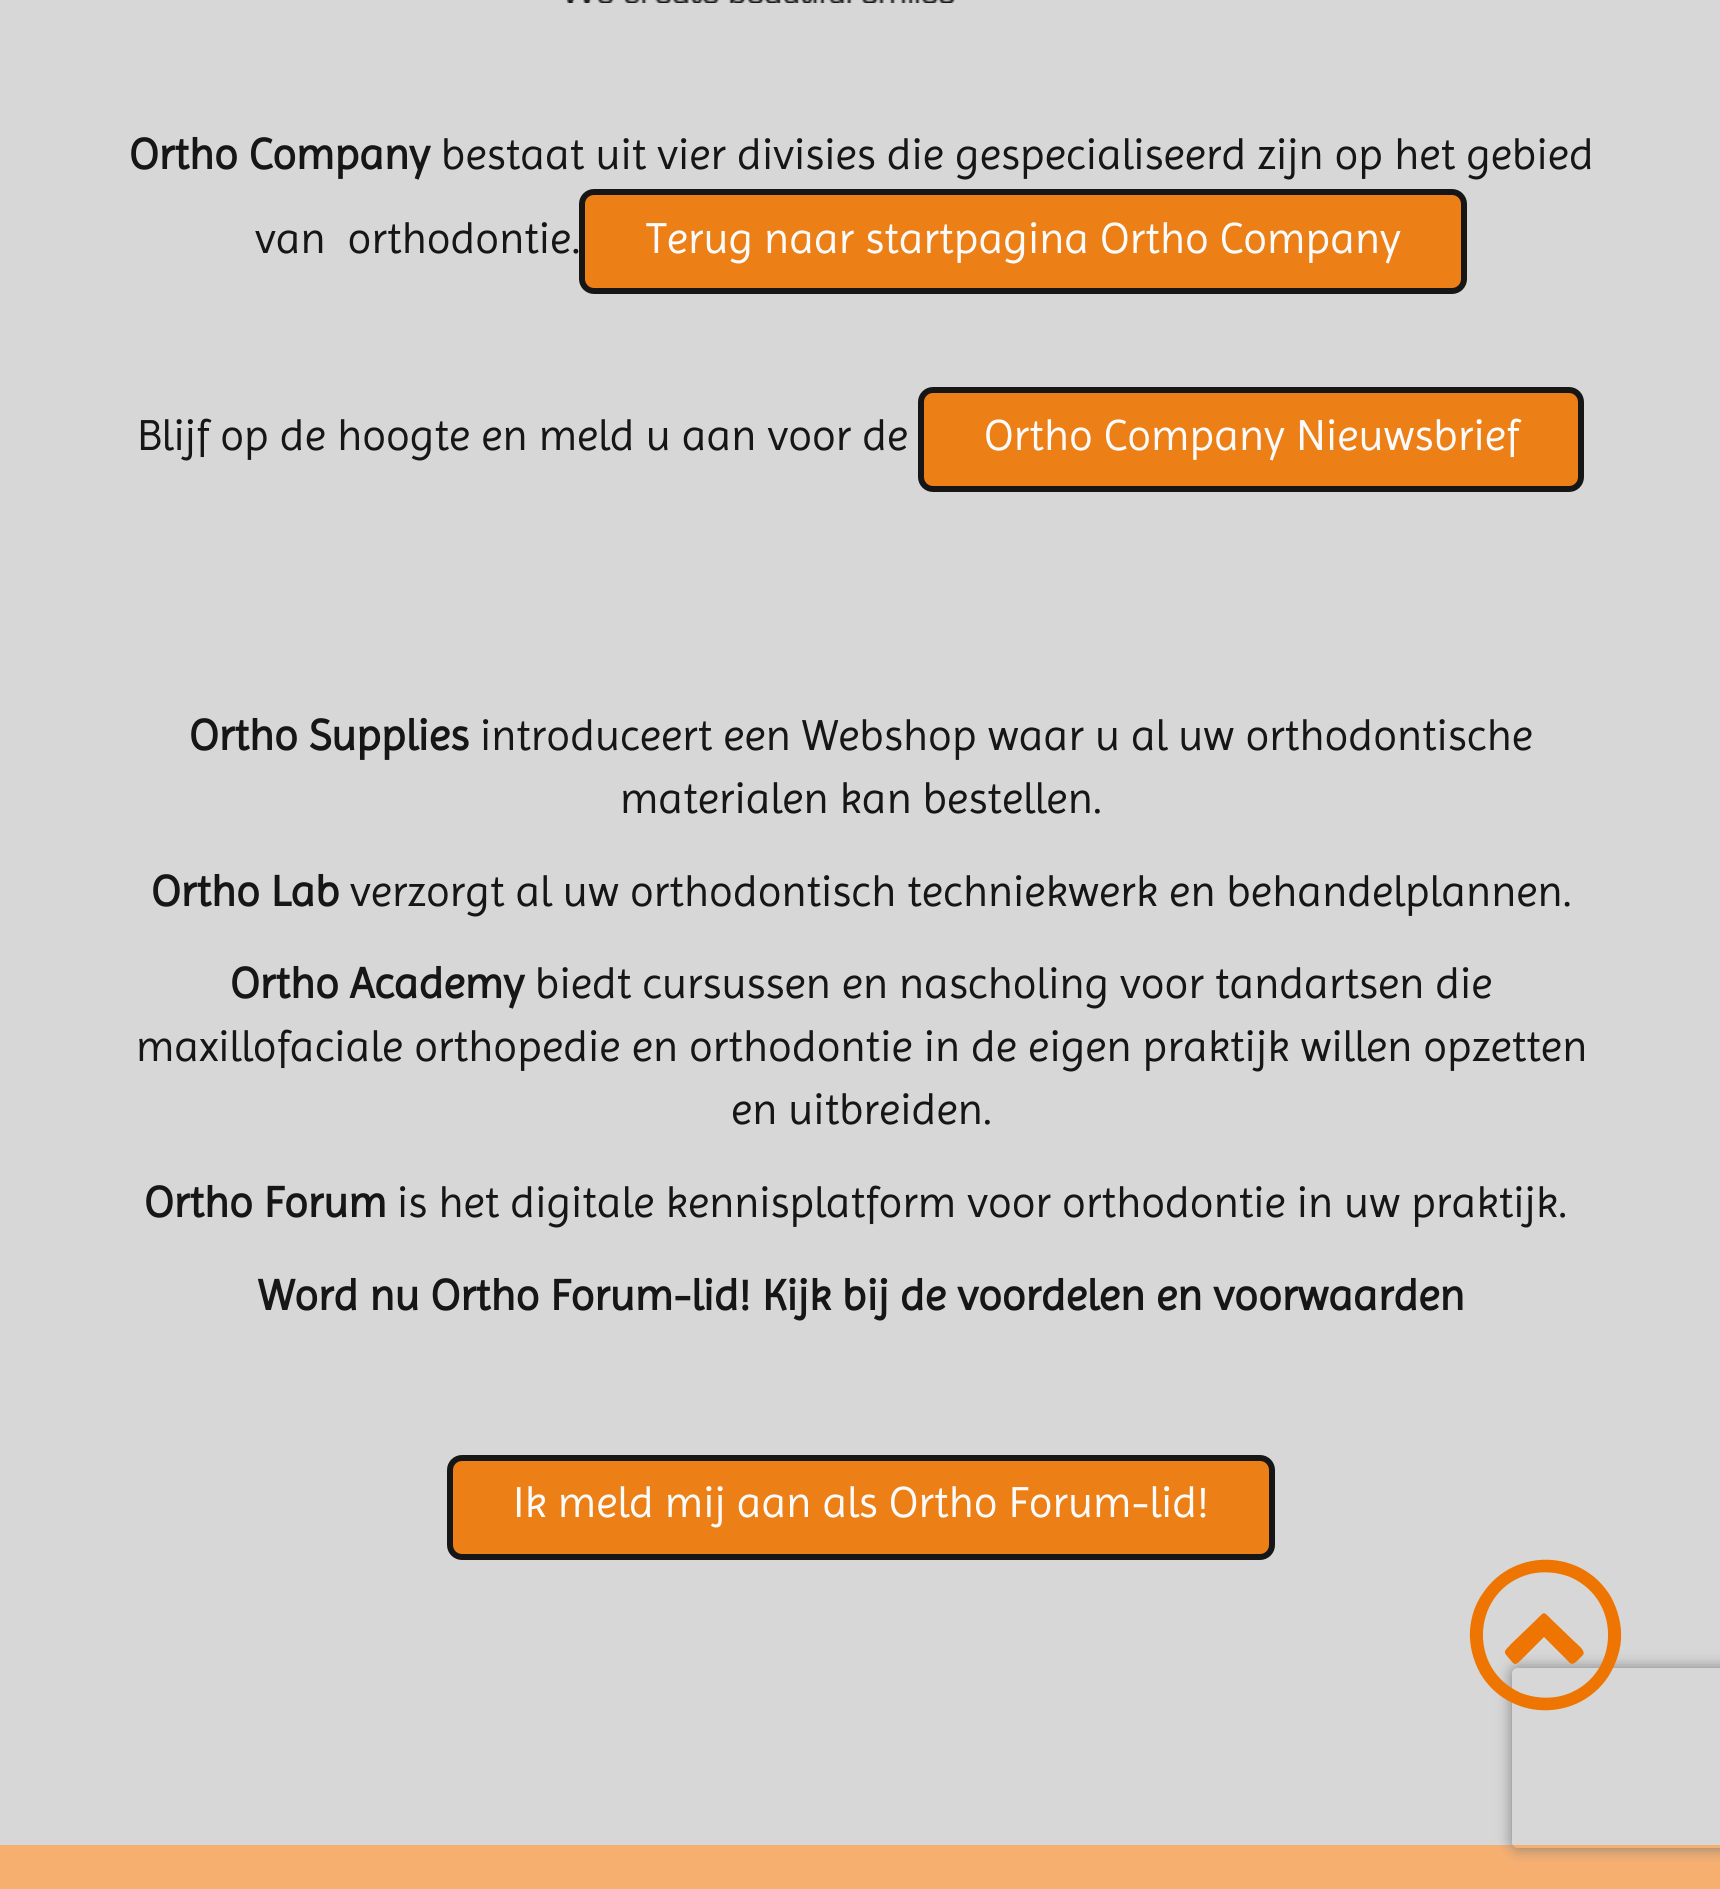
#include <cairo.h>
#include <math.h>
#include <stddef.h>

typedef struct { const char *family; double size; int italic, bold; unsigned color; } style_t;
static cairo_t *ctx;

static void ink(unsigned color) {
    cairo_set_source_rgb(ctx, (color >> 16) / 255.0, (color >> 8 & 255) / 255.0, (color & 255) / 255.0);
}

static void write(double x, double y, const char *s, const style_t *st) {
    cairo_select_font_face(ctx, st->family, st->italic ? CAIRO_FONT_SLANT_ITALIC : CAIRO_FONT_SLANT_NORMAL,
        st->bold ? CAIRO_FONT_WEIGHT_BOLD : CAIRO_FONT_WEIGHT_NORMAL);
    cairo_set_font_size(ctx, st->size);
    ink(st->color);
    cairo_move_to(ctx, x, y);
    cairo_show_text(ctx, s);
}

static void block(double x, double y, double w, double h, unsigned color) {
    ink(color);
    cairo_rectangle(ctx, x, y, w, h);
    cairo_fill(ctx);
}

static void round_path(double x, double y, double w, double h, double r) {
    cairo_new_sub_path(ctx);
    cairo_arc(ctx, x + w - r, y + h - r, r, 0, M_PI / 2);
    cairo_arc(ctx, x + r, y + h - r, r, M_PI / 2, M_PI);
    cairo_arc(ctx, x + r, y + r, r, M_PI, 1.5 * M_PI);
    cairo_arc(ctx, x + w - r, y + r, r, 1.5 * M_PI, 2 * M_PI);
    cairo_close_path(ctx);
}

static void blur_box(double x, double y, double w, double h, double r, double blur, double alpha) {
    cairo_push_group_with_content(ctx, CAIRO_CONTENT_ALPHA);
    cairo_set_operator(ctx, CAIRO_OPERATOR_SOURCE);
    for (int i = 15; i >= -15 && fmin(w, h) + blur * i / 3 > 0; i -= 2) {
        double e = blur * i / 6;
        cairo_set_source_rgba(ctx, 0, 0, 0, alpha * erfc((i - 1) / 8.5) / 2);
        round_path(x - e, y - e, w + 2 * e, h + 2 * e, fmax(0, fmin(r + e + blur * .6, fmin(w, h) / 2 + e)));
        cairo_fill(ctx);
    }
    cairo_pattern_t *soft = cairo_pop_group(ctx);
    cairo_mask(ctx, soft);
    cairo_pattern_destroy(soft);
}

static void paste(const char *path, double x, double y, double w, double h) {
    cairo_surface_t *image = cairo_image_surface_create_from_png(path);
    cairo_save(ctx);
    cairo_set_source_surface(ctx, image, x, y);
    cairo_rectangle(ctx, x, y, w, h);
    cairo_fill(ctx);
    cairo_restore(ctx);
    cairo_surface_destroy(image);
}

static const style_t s1 = {"Imprima", 44, 0, 1, 0x161616};
static const style_t s2 = {"Imprima", 44, 0, 0, 0x161616};
static const style_t s3 = {"Imprima", 44, 0, 0, 0xfbfbfb};

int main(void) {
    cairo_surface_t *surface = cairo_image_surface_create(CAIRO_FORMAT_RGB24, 1720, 1889);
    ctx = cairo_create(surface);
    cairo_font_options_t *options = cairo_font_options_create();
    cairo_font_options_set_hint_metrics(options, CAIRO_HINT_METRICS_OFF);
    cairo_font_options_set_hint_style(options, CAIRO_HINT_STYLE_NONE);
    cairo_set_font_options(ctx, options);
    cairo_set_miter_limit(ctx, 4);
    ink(0xd7d7d7);
    cairo_paint(ctx);
    paste("pic1.png", 566, 0, 389, 3);
    write(129, 169, "Ortho Company", &s1);
    write(441, 169, "bestaat uit vier divisies die gespecialiseerd zijn op het gebied", &s2);
    write(255, 253, "van  orthodontie.", &s2);
    ink(0xec7f16);
    round_path(582, 192, 882, 99, 12);
    cairo_fill_preserve(ctx);
    ink(0x161616);
    cairo_set_line_width(ctx, 6);
    cairo_stroke(ctx);
    write(646, 253, "Terug naar startpagina Ortho Company", &s3);
    write(137, 450, "Blijf op de hoogte en meld u aan voor de", &s2);
    ink(0xec7f16);
    round_path(921, 390, 660, 99, 12);
    cairo_fill_preserve(ctx);
    ink(0x161616);
    cairo_stroke(ctx);
    write(984, 450, "Ortho Company Nieuwsbrief", &s3);
    write(189, 750, "Ortho Supplies", &s1);
    write(480, 750, "introduceert een Webshop waar u al uw orthodontische", &s2);
    write(620, 813, "materialen kan bestellen.", &s2);
    write(151, 906, "Ortho Lab", &s1);
    write(350, 906, "verzorgt al uw orthodontisch techniekwerk en behandelplannen.", &s2);
    write(230, 998, "Ortho Academy", &s1);
    write(535, 998, "biedt cursussen en nascholing voor tandartsen die", &s2);
    write(136, 1061, "maxillofaciale orthopedie en orthodontie in de eigen praktijk willen opzetten", &s2);
    write(731, 1124, "en uitbreiden.", &s2);
    write(144, 1217, "Ortho Forum", &s1);
    write(397, 1217, "is het digitale kennisplatform voor orthodontie in uw praktijk.", &s2);
    write(258, 1310, "Word nu Ortho Forum-lid!", &s1);
    write(762, 1310, "Kijk bij de voordelen en voorwaarden", &s1);
    ink(0xec7f16);
    round_path(450, 1458, 822, 99, 12);
    cairo_fill_preserve(ctx);
    ink(0x161616);
    cairo_stroke(ctx);
    write(513, 1517, "Ik meld mij aan als Ortho Forum-lid!", &s3);
    block(0, 1845, 1720, 44, 0xf7af70);
    cairo_save(ctx);
    cairo_set_fill_rule(ctx, CAIRO_FILL_RULE_EVEN_ODD);
    cairo_new_path(ctx);
    cairo_move_to(ctx, 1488, 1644);
    cairo_line_to(ctx, 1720, 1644);
    cairo_line_to(ctx, 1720, 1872);
    cairo_line_to(ctx, 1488, 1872);
    cairo_close_path(ctx);
    cairo_move_to(ctx, 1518, 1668);
    cairo_line_to(ctx, 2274, 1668);
    cairo_curve_to(ctx, 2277.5, 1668, 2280, 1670.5, 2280, 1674);
    cairo_line_to(ctx, 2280, 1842);
    cairo_curve_to(ctx, 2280, 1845.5, 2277.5, 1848, 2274, 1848);
    cairo_line_to(ctx, 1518, 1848);
    cairo_curve_to(ctx, 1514.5, 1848, 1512, 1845.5, 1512, 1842);
    cairo_line_to(ctx, 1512, 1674);
    cairo_curve_to(ctx, 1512, 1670.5, 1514.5, 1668, 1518, 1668);
    cairo_close_path(ctx);
    cairo_clip(ctx);
    ink(0x808080);
    blur_box(1512, 1668, 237, 180, 6, 7.5, 1);
    cairo_restore(ctx);
    ink(0xee7501);
    cairo_new_path(ctx);
    cairo_move_to(ctx, 1570, 1577);
    cairo_curve_to(ctx, 1557, 1572, 1543, 1571, 1530, 1574);
    cairo_curve_to(ctx, 1472, 1589, 1466, 1669, 1521, 1693);
    cairo_curve_to(ctx, 1534, 1698, 1548, 1699, 1561, 1696);
    cairo_curve_to(ctx, 1619, 1681, 1625, 1601, 1570, 1577);
    cairo_close_path(ctx);
    cairo_move_to(ctx, 1611, 1597);
    cairo_curve_to(ctx, 1618, 1610, 1622, 1625, 1621, 1640);
    cairo_curve_to(ctx, 1620, 1653, 1615, 1666, 1608, 1677);
    cairo_curve_to(ctx, 1577, 1723, 1508, 1721, 1480, 1673);
    cairo_curve_to(ctx, 1473, 1660, 1469, 1645, 1470, 1630);
    cairo_curve_to(ctx, 1471, 1617, 1475, 1604, 1483, 1593);
    cairo_curve_to(ctx, 1514, 1547, 1583, 1549, 1611, 1597);
    cairo_close_path(ctx);
    cairo_fill(ctx);
    cairo_new_path(ctx);
    cairo_move_to(ctx, 1583, 1655);
    cairo_line_to(ctx, 1576, 1662);
    cairo_curve_to(ctx, 1571, 1666, 1570, 1663, 1566, 1659);
    cairo_line_to(ctx, 1544, 1637);
    cairo_line_to(ctx, 1522, 1659);
    cairo_curve_to(ctx, 1514, 1667, 1515, 1665, 1507, 1656);
    cairo_curve_to(ctx, 1502, 1651, 1507, 1649, 1511, 1644);
    cairo_line_to(ctx, 1536, 1620);
    cairo_curve_to(ctx, 1545, 1611, 1543, 1611, 1552, 1620);
    cairo_line_to(ctx, 1577, 1644);
    cairo_curve_to(ctx, 1578, 1645, 1586, 1651, 1583, 1655);
    cairo_close_path(ctx);
    cairo_fill(ctx);
    cairo_surface_write_to_png(surface, "screenshot.png");
    cairo_font_options_destroy(options);
    cairo_destroy(ctx);
    cairo_surface_destroy(surface);
    return 0;
}
